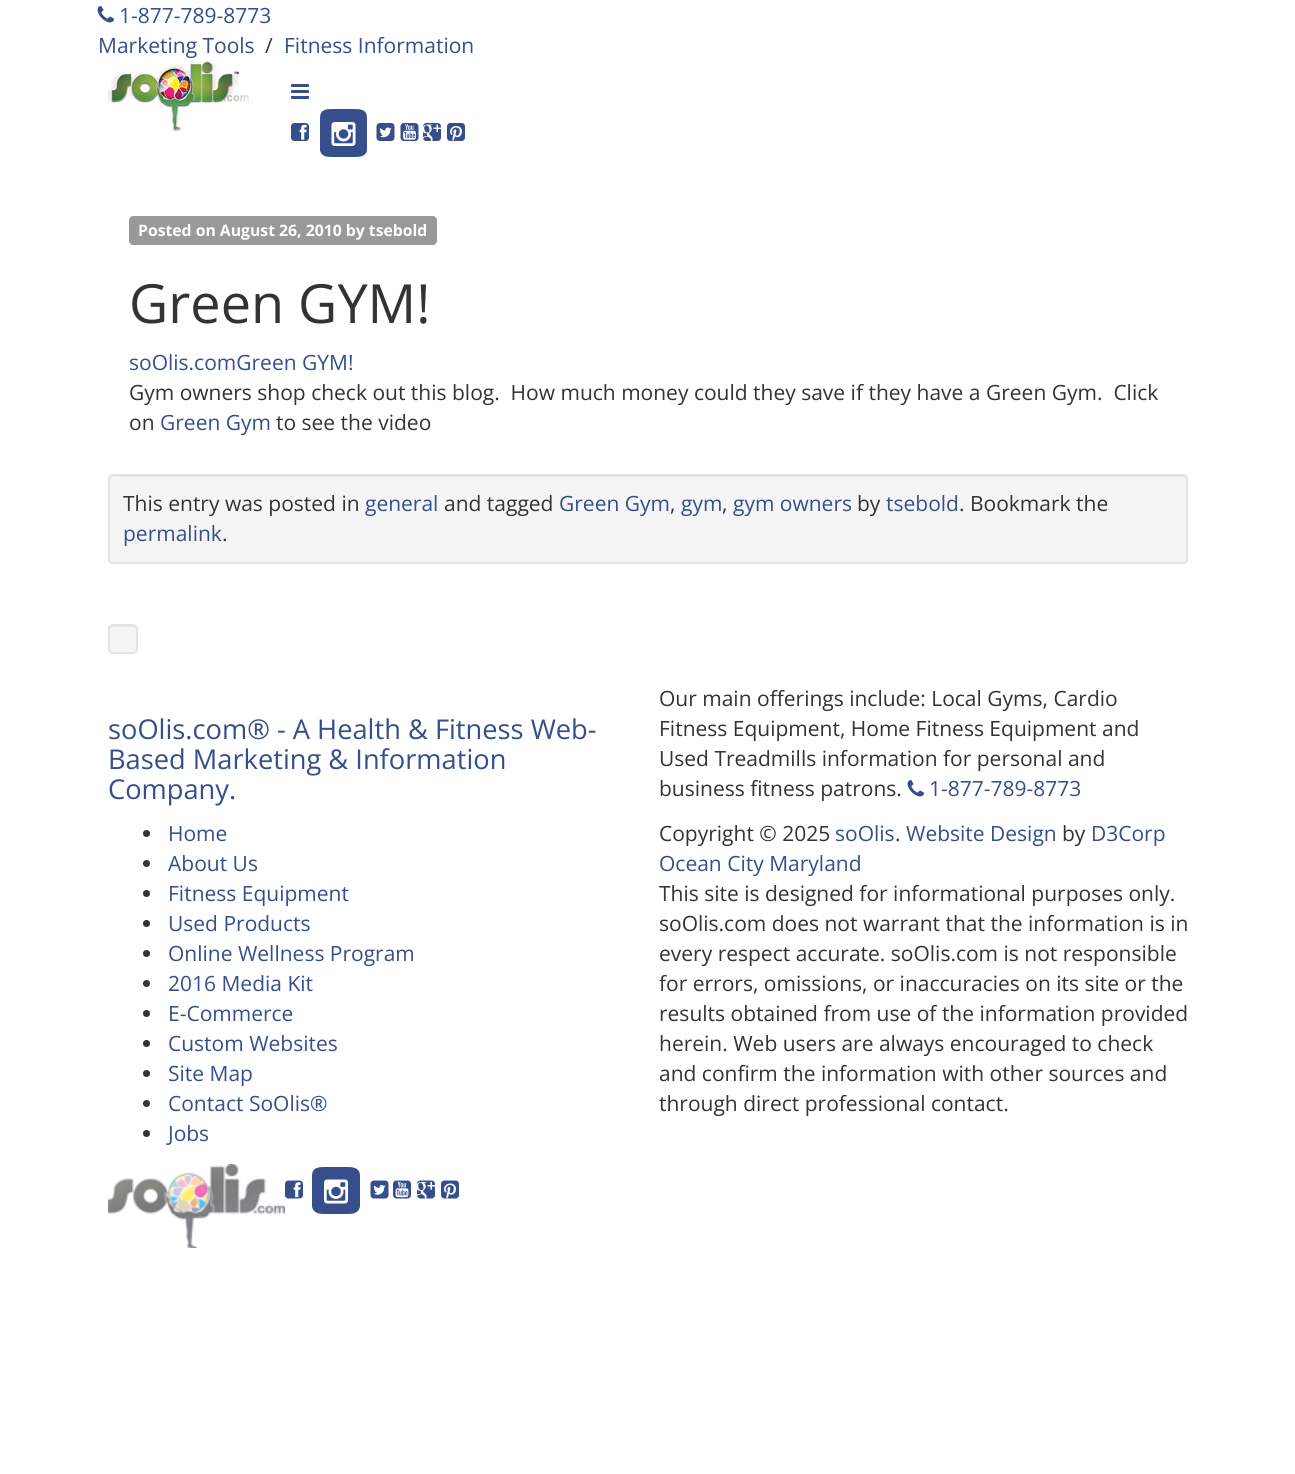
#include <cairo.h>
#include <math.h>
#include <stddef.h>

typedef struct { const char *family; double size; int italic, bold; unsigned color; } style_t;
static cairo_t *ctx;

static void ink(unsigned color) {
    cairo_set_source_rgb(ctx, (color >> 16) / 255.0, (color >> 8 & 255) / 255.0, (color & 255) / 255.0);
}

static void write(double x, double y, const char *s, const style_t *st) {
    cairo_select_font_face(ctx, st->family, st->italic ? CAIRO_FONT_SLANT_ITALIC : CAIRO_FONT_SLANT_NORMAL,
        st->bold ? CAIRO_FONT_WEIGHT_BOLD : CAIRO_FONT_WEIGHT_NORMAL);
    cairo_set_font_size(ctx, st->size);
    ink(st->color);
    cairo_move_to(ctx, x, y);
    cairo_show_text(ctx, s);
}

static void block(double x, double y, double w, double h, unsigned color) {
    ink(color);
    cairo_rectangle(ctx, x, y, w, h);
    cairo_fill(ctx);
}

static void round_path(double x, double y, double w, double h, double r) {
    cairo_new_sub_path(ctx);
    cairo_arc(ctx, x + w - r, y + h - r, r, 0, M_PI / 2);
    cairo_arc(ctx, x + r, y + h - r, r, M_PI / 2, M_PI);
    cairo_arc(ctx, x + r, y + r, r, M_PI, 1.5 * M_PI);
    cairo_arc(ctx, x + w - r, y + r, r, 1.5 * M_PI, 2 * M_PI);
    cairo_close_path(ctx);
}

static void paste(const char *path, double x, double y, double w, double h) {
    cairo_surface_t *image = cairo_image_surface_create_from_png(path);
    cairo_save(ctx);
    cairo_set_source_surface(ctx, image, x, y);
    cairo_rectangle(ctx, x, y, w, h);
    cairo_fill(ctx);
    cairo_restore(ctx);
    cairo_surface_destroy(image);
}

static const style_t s1 = {"Open Sans", 21, 0, 0, 0x374e8d};
static const style_t s2 = {"Open Sans", 21, 0, 0, 0x333333};
static const style_t s3 = {"Open Sans", 15.75, 0, 1, 0xffffff};
static const style_t s4 = {"Open Sans", 54, 0, 0, 0x333333};
static const style_t s5 = {"Open Sans", 27.25, 0, 0, 0x374e8d};

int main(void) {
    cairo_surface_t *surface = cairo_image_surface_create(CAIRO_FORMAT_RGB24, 1295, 1474);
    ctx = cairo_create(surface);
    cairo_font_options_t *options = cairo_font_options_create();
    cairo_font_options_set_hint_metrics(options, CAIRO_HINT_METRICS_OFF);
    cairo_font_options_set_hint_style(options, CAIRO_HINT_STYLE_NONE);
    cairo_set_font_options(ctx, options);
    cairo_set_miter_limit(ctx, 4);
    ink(0xffffff);
    cairo_paint(ctx);
    paste("pic1.png", 97, 6, 17, 17);
    write(119, 23, "1-877-789-8773", &s1);
    write(98, 53, "Marketing Tools", &s1);
    write(265, 53, "/", &s2);
    write(284, 53, "Fitness Information", &s1);
    paste("pic2.png", 108, 60, 144, 75);
    paste("pic3.png", 291, 84, 18, 15);
    paste("pic4.png", 291, 123, 18, 18);
    cairo_new_path(ctx);
    cairo_move_to(ctx, 367, 118);
    cairo_line_to(ctx, 367, 150);
    cairo_curve_to(ctx, 366, 157, 359, 157, 353, 157);
    cairo_line_to(ctx, 333, 157);
    cairo_curve_to(ctx, 328, 157, 321, 157, 320, 150);
    cairo_line_to(ctx, 320, 118);
    cairo_curve_to(ctx, 320, 109, 327, 109, 333, 109);
    cairo_line_to(ctx, 353, 109);
    cairo_curve_to(ctx, 360, 109, 367, 109, 367, 118);
    cairo_close_path(ctx);
    cairo_fill(ctx);
    paste("pic5.png", 331, 122, 25, 24);
    paste("pic6.png", 376, 123, 19, 18);
    paste("pic7.png", 400, 123, 19, 18);
    paste("pic8.png", 423, 123, 18, 18);
    paste("pic9.png", 447, 123, 18, 18);
    ink(0x999999);
    cairo_new_path(ctx);
    cairo_move_to(ctx, 133, 216);
    cairo_line_to(ctx, 221, 216);
    cairo_line_to(ctx, 221, 245);
    cairo_line_to(ctx, 133, 245);
    cairo_curve_to(ctx, 131, 245, 129, 243, 129, 241);
    cairo_line_to(ctx, 129, 220);
    cairo_curve_to(ctx, 129, 218, 131, 216, 133, 216);
    cairo_close_path(ctx);
    cairo_fill(ctx);
    block(221, 216, 148, 29, 0x999999);
    cairo_new_path(ctx);
    cairo_move_to(ctx, 369, 216);
    cairo_line_to(ctx, 433, 216);
    cairo_curve_to(ctx, 435, 216, 437, 218, 437, 220);
    cairo_line_to(ctx, 437, 241);
    cairo_curve_to(ctx, 437, 243, 435, 245, 433, 245);
    cairo_line_to(ctx, 369, 245);
    cairo_close_path(ctx);
    cairo_fill(ctx);
    write(138, 236, "Posted on August 26, 2010 by tsebold", &s3);
    write(129, 323, "Green GYM!", &s4);
    write(129, 370, "soOlis.comGreen GYM!", &s1);
    write(129, 400, "Gym owners shop check out this blog.  How much money could they save if they have a Green Gym.  Click", &s2);
    write(129, 430, "on", &s2);
    write(160, 430, "Green Gym", &s1);
    write(276, 430, "to see the video", &s2);
    ink(0xf5f5f5);
    round_path(108, 474, 1080, 90, 5);
    cairo_fill(ctx);
    ink(0xe9e9e9);
    cairo_new_path(ctx);
    cairo_move_to(ctx, 112, 477);
    cairo_line_to(ctx, 1184, 477);
    cairo_curve_to(ctx, 1185, 477, 1186, 478, 1186, 480);
    cairo_line_to(ctx, 1186, 562);
    cairo_line_to(ctx, 1187, 560);
    cairo_line_to(ctx, 1187, 479);
    cairo_curve_to(ctx, 1187, 477, 1186, 476, 1184, 476);
    cairo_line_to(ctx, 113, 476);
    cairo_line_to(ctx, 111, 477);
    cairo_line_to(ctx, 110, 480);
    cairo_curve_to(ctx, 110, 478, 111, 477, 112, 477);
    cairo_close_path(ctx);
    cairo_fill(ctx);
    round_path(109, 475, 1078, 88, 4);
    ink(0xe3e3e3);
    cairo_stroke(ctx);
    write(123, 511, "This entry was posted in", &s2);
    write(365, 511, "general", &s1);
    write(444, 511, "and tagged", &s2);
    write(559, 511, "Green Gym", &s1);
    write(670, 511, ",", &s2);
    write(681, 511, "gym", &s1);
    write(722, 511, ",", &s2);
    write(733, 511, "gym owners", &s1);
    write(857, 511, "by", &s2);
    write(886, 511, "tsebold", &s1);
    write(959, 511, ". Bookmark the", &s2);
    write(123, 541, "permalink", &s1);
    write(222, 541, ".", &s2);
    ink(0xf5f5f5);
    round_path(108, 624, 30, 30, 5);
    cairo_fill(ctx);
    ink(0xe9e9e9);
    cairo_new_path(ctx);
    cairo_move_to(ctx, 112, 627);
    cairo_line_to(ctx, 134.5, 627);
    cairo_curve_to(ctx, 137, 627.5, 136, 635.5, 136, 637);
    cairo_line_to(ctx, 136, 652.5);
    cairo_curve_to(ctx, 137.5, 651, 137, 648.5, 137, 646.5);
    cairo_line_to(ctx, 137, 639.5);
    cairo_curve_to(ctx, 137, 624, 139, 626, 123.5, 626);
    cairo_line_to(ctx, 116.5, 626);
    cairo_curve_to(ctx, 112.5, 626, 110, 625.5, 110, 630);
    cairo_curve_to(ctx, 110, 628, 111, 627, 112, 627);
    cairo_close_path(ctx);
    cairo_fill(ctx);
    round_path(109, 625, 28, 28, 4);
    ink(0xe3e3e3);
    cairo_stroke(ctx);
    write(108, 739, "soOlis.com® - A Health & Fitness Web-", &s5);
    write(108, 769, "Based Marketing & Information", &s5);
    write(108, 799, "Company.", &s5);
    ink(0x333333);
    cairo_new_path(ctx);
    cairo_arc(ctx, 146.5, 833.5, 3.5, 0, 2 * M_PI);
    cairo_fill(ctx);
    write(168, 841, "Home", &s1);
    ink(0x333333);
    cairo_new_path(ctx);
    cairo_arc(ctx, 146.5, 863.5, 3.5, 0, 2 * M_PI);
    cairo_fill(ctx);
    write(168, 871, "About Us", &s1);
    ink(0x333333);
    cairo_new_path(ctx);
    cairo_arc(ctx, 146.5, 893.5, 3.5, 0, 2 * M_PI);
    cairo_fill(ctx);
    write(168, 901, "Fitness Equipment", &s1);
    ink(0x333333);
    cairo_new_path(ctx);
    cairo_arc(ctx, 146.5, 923.5, 3.5, 0, 2 * M_PI);
    cairo_fill(ctx);
    write(168, 931, "Used Products", &s1);
    ink(0x333333);
    cairo_new_path(ctx);
    cairo_arc(ctx, 146.5, 953.5, 3.5, 0, 2 * M_PI);
    cairo_fill(ctx);
    write(168, 961, "Online Wellness Program", &s1);
    ink(0x333333);
    cairo_new_path(ctx);
    cairo_arc(ctx, 146.5, 983.5, 3.5, 0, 2 * M_PI);
    cairo_fill(ctx);
    write(168, 991, "2016 Media Kit", &s1);
    ink(0x333333);
    cairo_new_path(ctx);
    cairo_arc(ctx, 146.5, 1013.5, 3.5, 0, 2 * M_PI);
    cairo_fill(ctx);
    write(168, 1021, "E-Commerce", &s1);
    ink(0x333333);
    cairo_new_path(ctx);
    cairo_arc(ctx, 146.5, 1043.5, 3.5, 0, 2 * M_PI);
    cairo_fill(ctx);
    write(168, 1051, "Custom Websites", &s1);
    ink(0x333333);
    cairo_new_path(ctx);
    cairo_arc(ctx, 146.5, 1073.5, 3.5, 0, 2 * M_PI);
    cairo_fill(ctx);
    write(168, 1081, "Site Map", &s1);
    ink(0x333333);
    cairo_new_path(ctx);
    cairo_arc(ctx, 146.5, 1103.5, 3.5, 0, 2 * M_PI);
    cairo_fill(ctx);
    write(168, 1111, "Contact SoOlis®", &s1);
    ink(0x333333);
    cairo_new_path(ctx);
    cairo_arc(ctx, 146.5, 1133.5, 3.5, 0, 2 * M_PI);
    cairo_fill(ctx);
    write(168, 1141, "Jobs", &s1);
    paste("pic10.png", 108, 1164, 177, 84);
    paste("pic11.png", 285, 1180, 18, 19);
    cairo_new_path(ctx);
    cairo_move_to(ctx, 360, 1176);
    cairo_line_to(ctx, 360, 1207);
    cairo_curve_to(ctx, 358, 1214, 352, 1214, 346, 1214);
    cairo_line_to(ctx, 326, 1214);
    cairo_curve_to(ctx, 320, 1214, 314, 1214, 312, 1207);
    cairo_line_to(ctx, 312, 1176);
    cairo_curve_to(ctx, 312, 1167, 319, 1167, 326, 1167);
    cairo_line_to(ctx, 346, 1167);
    cairo_curve_to(ctx, 352, 1167, 360, 1167, 360, 1176);
    cairo_close_path(ctx);
    cairo_fill(ctx);
    paste("pic12.png", 324, 1179, 24, 25);
    paste("pic13.png", 370, 1180, 19, 19);
    paste("pic14.png", 393, 1180, 18, 19);
    paste("pic15.png", 417, 1180, 18, 19);
    paste("pic16.png", 441, 1180, 18, 19);
    write(659, 706, "Our main offerings include: Local Gyms, Cardio", &s2);
    write(659, 736, "Fitness Equipment, Home Fitness Equipment and", &s2);
    write(659, 766, "Used Treadmills information for personal and", &s2);
    write(659, 796, "business fitness patrons.", &s2);
    paste("pic1.png", 907, 780, 17, 17);
    write(929, 796, "1-877-789-8773", &s1);
    write(659, 841, "Copyright © 2025", &s2);
    write(835, 841, "soOlis", &s1);
    write(895, 841, ".", &s2);
    write(906, 841, "Website Design", &s1);
    write(1062, 841, "by", &s2);
    write(1091, 841, "D3Corp", &s1);
    write(659, 871, "Ocean City Maryland", &s1);
    write(659, 901, "This site is designed for informational purposes only.", &s2);
    write(659, 931, "soOlis.com does not warrant that the information is in", &s2);
    write(659, 961, "every respect accurate. soOlis.com is not responsible", &s2);
    write(659, 991, "for errors, omissions, or inaccuracies on its site or the", &s2);
    write(659, 1021, "results obtained from use of the information provided", &s2);
    write(659, 1051, "herein. Web users are always encouraged to check", &s2);
    write(659, 1081, "and confirm the information with other sources and", &s2);
    write(659, 1111, "through direct professional contact.", &s2);
    cairo_surface_write_to_png(surface, "screenshot.png");
    cairo_font_options_destroy(options);
    cairo_destroy(ctx);
    cairo_surface_destroy(surface);
    return 0;
}
